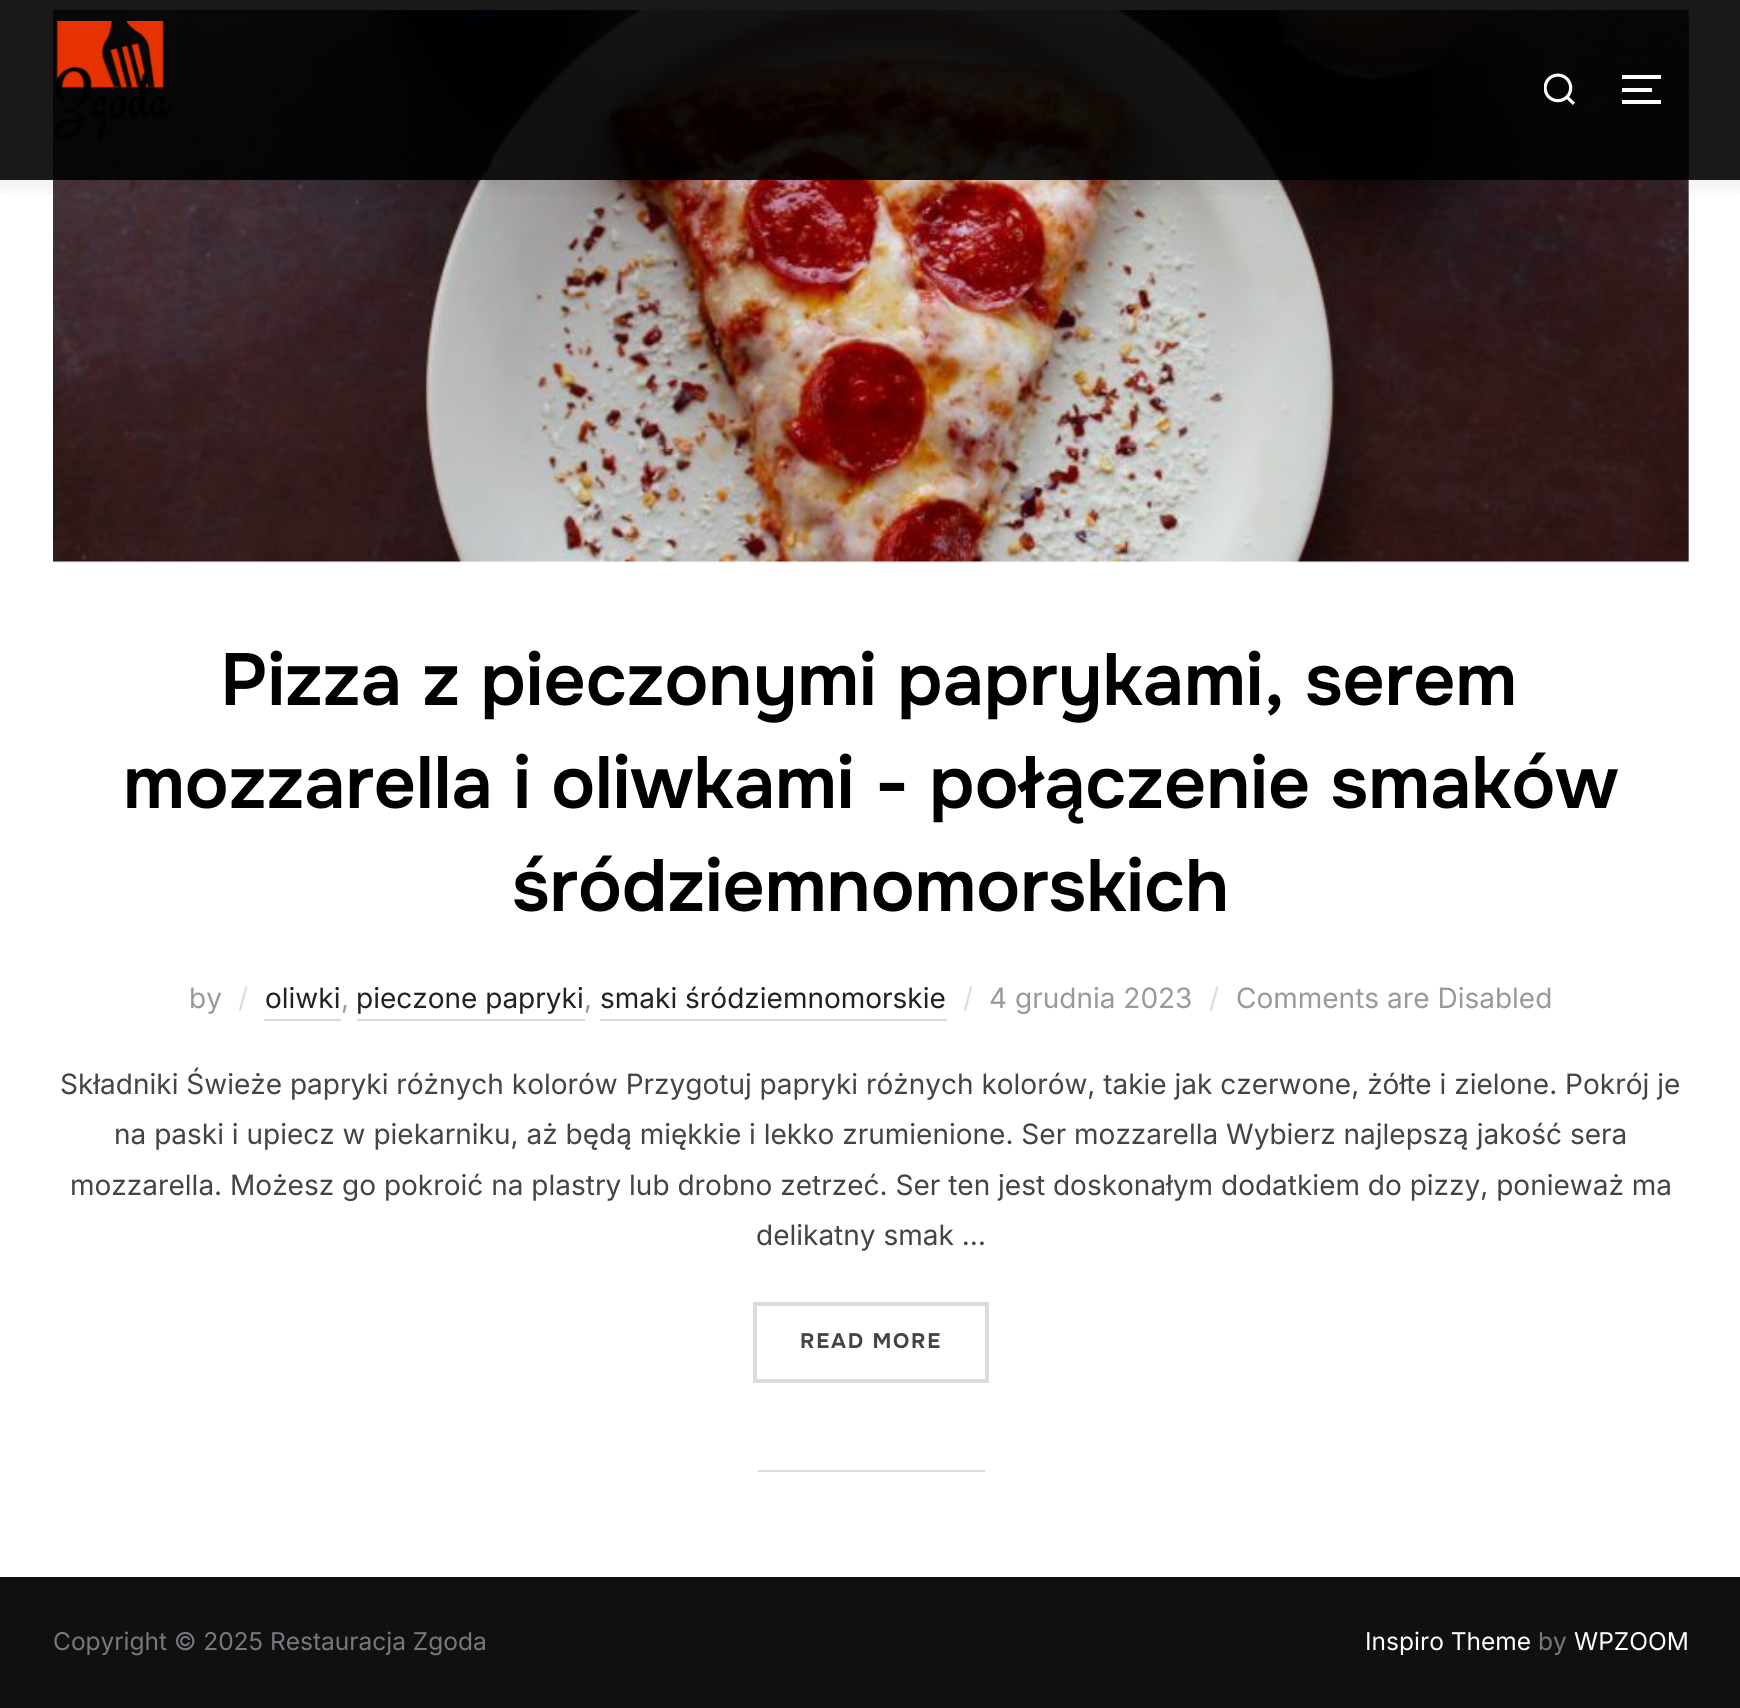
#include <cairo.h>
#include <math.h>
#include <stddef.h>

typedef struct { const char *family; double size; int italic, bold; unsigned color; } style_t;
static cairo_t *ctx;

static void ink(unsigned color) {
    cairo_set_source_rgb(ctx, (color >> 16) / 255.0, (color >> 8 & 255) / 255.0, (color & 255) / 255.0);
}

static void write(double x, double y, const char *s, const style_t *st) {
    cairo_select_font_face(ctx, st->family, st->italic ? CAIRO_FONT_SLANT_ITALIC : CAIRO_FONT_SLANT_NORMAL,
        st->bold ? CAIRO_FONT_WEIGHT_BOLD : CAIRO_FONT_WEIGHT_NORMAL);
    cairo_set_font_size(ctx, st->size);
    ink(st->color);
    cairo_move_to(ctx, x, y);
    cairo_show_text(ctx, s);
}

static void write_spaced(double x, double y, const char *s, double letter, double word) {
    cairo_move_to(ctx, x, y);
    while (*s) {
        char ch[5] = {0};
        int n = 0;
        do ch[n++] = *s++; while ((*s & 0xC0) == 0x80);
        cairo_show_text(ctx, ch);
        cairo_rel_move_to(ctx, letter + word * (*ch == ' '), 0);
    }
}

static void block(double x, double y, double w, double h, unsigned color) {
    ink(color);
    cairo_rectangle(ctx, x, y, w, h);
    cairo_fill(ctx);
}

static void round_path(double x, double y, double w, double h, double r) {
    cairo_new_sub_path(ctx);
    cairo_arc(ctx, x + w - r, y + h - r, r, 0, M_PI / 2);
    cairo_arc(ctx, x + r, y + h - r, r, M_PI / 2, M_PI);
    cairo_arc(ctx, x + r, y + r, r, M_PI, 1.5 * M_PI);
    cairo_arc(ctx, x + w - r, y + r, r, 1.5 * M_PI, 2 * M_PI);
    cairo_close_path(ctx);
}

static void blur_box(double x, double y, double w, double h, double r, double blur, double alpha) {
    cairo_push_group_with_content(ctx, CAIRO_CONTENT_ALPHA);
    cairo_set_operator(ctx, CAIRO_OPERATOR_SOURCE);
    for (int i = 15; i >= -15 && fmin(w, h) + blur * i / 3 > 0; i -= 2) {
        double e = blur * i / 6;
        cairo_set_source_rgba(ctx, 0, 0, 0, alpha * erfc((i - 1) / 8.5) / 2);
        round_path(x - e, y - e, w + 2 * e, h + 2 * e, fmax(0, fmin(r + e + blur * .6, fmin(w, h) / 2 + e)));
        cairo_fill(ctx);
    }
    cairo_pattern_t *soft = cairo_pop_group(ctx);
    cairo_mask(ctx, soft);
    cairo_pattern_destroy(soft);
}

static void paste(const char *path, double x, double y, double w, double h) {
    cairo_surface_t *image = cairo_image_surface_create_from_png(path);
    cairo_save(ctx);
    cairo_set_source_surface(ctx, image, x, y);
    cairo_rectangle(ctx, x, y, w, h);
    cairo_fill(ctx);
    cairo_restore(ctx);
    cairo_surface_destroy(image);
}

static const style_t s1 = {"Onest SemiBold", 73.5, 0, 0, 0x000000};
static const style_t s2 = {"Inter", 28, 0, 0, 0x999999};
static const style_t s3 = {"Inter", 28, 0, 0, 0xdbdddd};
static const style_t s4 = {"Inter", 28, 0, 0, 0x222222};
static const style_t s5 = {"Inter", 28, 0, 0, 0x444444};
static const style_t s6 = {"Inter", 24.5, 0, 0, 0x78787f};
static const style_t s7 = {"Inter", 24.5, 0, 0, 0xffffff};

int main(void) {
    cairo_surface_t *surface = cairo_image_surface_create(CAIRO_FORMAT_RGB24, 1740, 1708);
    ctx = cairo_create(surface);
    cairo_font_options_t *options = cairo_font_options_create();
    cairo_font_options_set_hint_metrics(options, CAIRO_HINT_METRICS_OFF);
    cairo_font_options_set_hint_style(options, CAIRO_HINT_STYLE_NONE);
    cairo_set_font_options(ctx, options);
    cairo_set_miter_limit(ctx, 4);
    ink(0xffffff);
    cairo_paint(ctx);
    paste("pic3.png", 53, 10, 1636, 553);
    cairo_save(ctx);
    cairo_rectangle(ctx, 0, 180, 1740, 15);
    cairo_clip(ctx);
    ink(0x000000);
    blur_box(-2, -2, 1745, 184, 0, 16, 0.1);
    cairo_restore(ctx);
    cairo_set_source_rgba(ctx, 0, 0, 0, 0.9);
    cairo_rectangle(ctx, 0, 0, 1740, 180);
    cairo_fill(ctx);
    paste("pic1.png", 55, 21, 115, 120);
    paste("pic2.png", 1544, 73, 31, 32);
    block(1622, 75, 39, 4, 0xffffff);
    block(1622, 88, 30, 4, 0xffffff);
    block(1622, 100, 39, 4, 0xffffff);
    write(220, 705, "Pizza z pieczonymi paprykami, serem", &s1);
    write(123, 808, "mozzarella i oliwkami - połączenie smaków", &s1);
    write(512, 911, "śródziemnomorskich", &s1);
    write(189, 1008, "by", &s2);
    write(238, 1008, "/", &s3);
    write(265, 1008, "oliwki", &s4);
    write(341, 1008, ",", &s2);
    block(264, 1019, 77, 2, 0xdbdbdb);
    write(356, 1008, "pieczone papryki", &s4);
    write(584, 1008, ",", &s2);
    block(357, 1019, 228, 2, 0xdbdbdb);
    block(600, 1019, 347, 2, 0xdbdbdb);
    write(600, 1008, "smaki śródziemnomorskie", &s4);
    write(963, 1008, "/", &s3);
    write(989, 1008, "4 grudnia 2023", &s2);
    write(1209, 1008, "/", &s3);
    write(1236, 1008, "Comments are Disabled", &s2);
    write(60, 1094, "Składniki Świeże papryki różnych kolorów Przygotuj papryki różnych kolorów, takie jak czerwone, żółte i zielone. Pokrój je", &s5);
    write(114, 1144, "na paski i upiecz w piekarniku, aż będą miękkie i lekko zrumienione. Ser mozzarella Wybierz najlepszą jakość sera", &s5);
    write(70, 1195, "mozzarella. Możesz go pokroić na plastry lub drobno zetrzeć. Ser ten jest doskonałym dodatkiem do pizzy, ponieważ ma", &s5);
    write(756, 1245, "delikatny smak …", &s5);
    cairo_rectangle(ctx, 755, 1304, 232, 77);
    ink(0xdbdbdb);
    cairo_set_line_width(ctx, 4);
    cairo_stroke(ctx);
    cairo_select_font_face(ctx, "Onest", CAIRO_FONT_SLANT_NORMAL, CAIRO_FONT_WEIGHT_BOLD);
    cairo_set_font_size(ctx, 21);
    ink(0x444444);
    write_spaced(800, 1348, "READ MORE", 1.75, 0);
    block(758, 1470, 227, 2, 0xdbdbdb);
    block(0, 1577, 1740, 131, 0x101010);
    write(53, 1650, "Copyright © 2025 Restauracja Zgoda", &s6);
    write(1365, 1650, "Inspiro Theme", &s7);
    write(1538, 1650, "by", &s6);
    write(1574, 1650, "WPZOOM", &s7);
    cairo_surface_write_to_png(surface, "screenshot.png");
    cairo_font_options_destroy(options);
    cairo_destroy(ctx);
    cairo_surface_destroy(surface);
    return 0;
}
